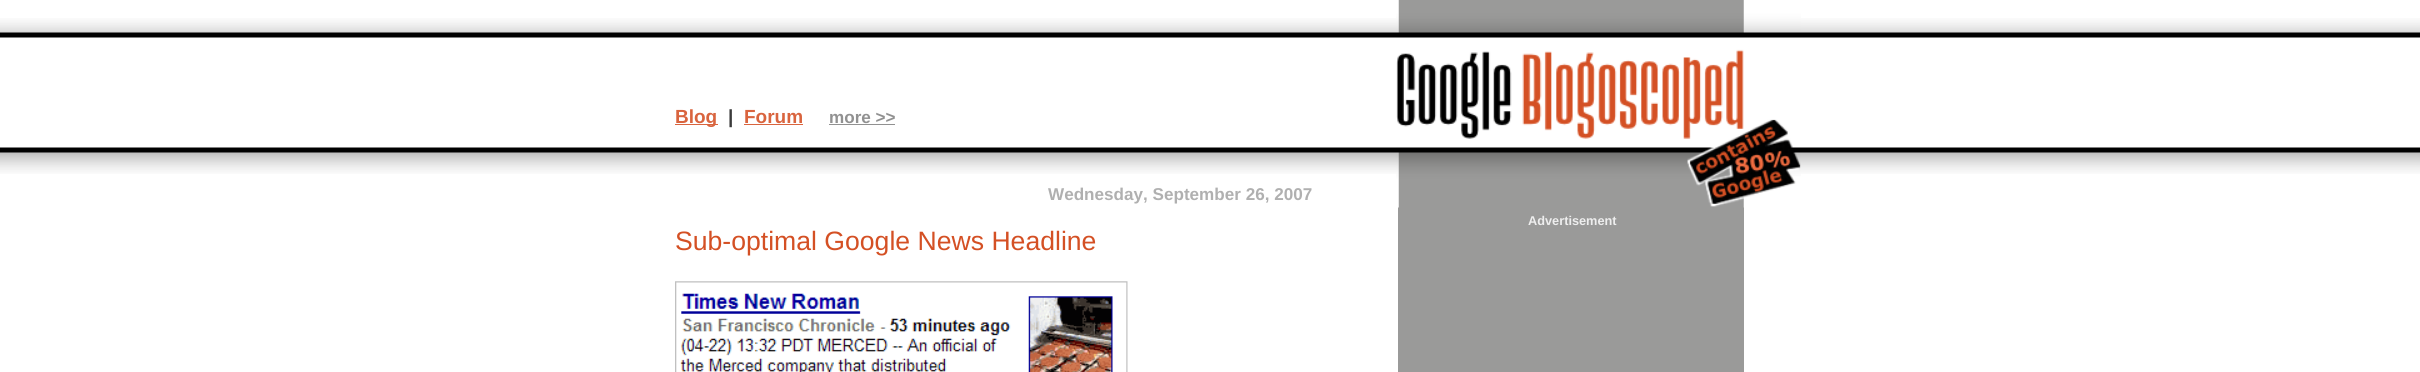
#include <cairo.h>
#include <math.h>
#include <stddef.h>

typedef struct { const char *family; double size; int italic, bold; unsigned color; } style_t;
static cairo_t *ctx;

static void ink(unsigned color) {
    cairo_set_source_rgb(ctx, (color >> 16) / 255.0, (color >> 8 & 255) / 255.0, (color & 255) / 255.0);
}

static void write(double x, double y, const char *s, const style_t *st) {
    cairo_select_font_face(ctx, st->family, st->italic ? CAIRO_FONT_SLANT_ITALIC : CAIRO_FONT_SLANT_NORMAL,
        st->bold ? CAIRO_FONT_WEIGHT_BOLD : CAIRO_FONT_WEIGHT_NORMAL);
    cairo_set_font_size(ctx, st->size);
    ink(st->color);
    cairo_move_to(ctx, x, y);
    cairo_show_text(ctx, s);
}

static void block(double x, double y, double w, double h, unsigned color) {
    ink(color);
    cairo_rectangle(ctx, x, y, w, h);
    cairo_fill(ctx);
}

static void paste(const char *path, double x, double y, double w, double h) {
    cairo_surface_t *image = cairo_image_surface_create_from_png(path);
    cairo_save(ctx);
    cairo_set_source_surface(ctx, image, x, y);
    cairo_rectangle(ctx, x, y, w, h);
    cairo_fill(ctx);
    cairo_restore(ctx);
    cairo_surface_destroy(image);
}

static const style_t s1 = {"Liberation Sans", 19, 0, 1, 0xd9643e};
static const style_t s2 = {"Liberation Sans", 19, 0, 1, 0x3b3b3b};
static const style_t s3 = {"Liberation Sans", 17.1, 0, 1, 0x919191};
static const style_t s4 = {"Liberation Sans", 17.1, 0, 1, 0xb0b0b0};
static const style_t s5 = {"Liberation Sans", 26.6, 0, 0, 0xd45024};
static const style_t s6 = {"Liberation Sans", 12.75, 0, 1, 0xeeeeee};

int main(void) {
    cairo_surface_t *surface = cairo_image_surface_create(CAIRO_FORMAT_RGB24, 2420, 372);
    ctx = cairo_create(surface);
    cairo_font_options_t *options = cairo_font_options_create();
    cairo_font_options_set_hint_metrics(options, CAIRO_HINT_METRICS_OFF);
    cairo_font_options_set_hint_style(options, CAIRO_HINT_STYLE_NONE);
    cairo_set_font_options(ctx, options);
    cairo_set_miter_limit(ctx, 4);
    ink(0xffffff);
    cairo_paint(ctx);
    paste("pic1.png", 0, 18, 2420, 156);
    block(1398, 207, 346, 165, 0x9a9a99);
    block(675, 124, 43, 1, 0xd9643e);
    write(675, 123, "Blog", &s1);
    write(728, 123, "|", &s2);
    write(744, 123, "Forum", &s1);
    block(744, 124, 59, 1, 0xd9643e);
    write(829, 123, "more >>", &s3);
    block(829, 124, 66, 1, 0x919191);
    paste("pic2.png", 1396, 0, 405, 208);
    write(1048, 200, "Wednesday, September 26, 2007", &s4);
    write(675, 250, "Sub-optimal Google News Headline", &s5);
    paste("pic3.png", 675, 281, 453, 91);
    write(1528, 225, "Advertisement", &s6);
    cairo_surface_write_to_png(surface, "screenshot.png");
    cairo_font_options_destroy(options);
    cairo_destroy(ctx);
    cairo_surface_destroy(surface);
    return 0;
}
